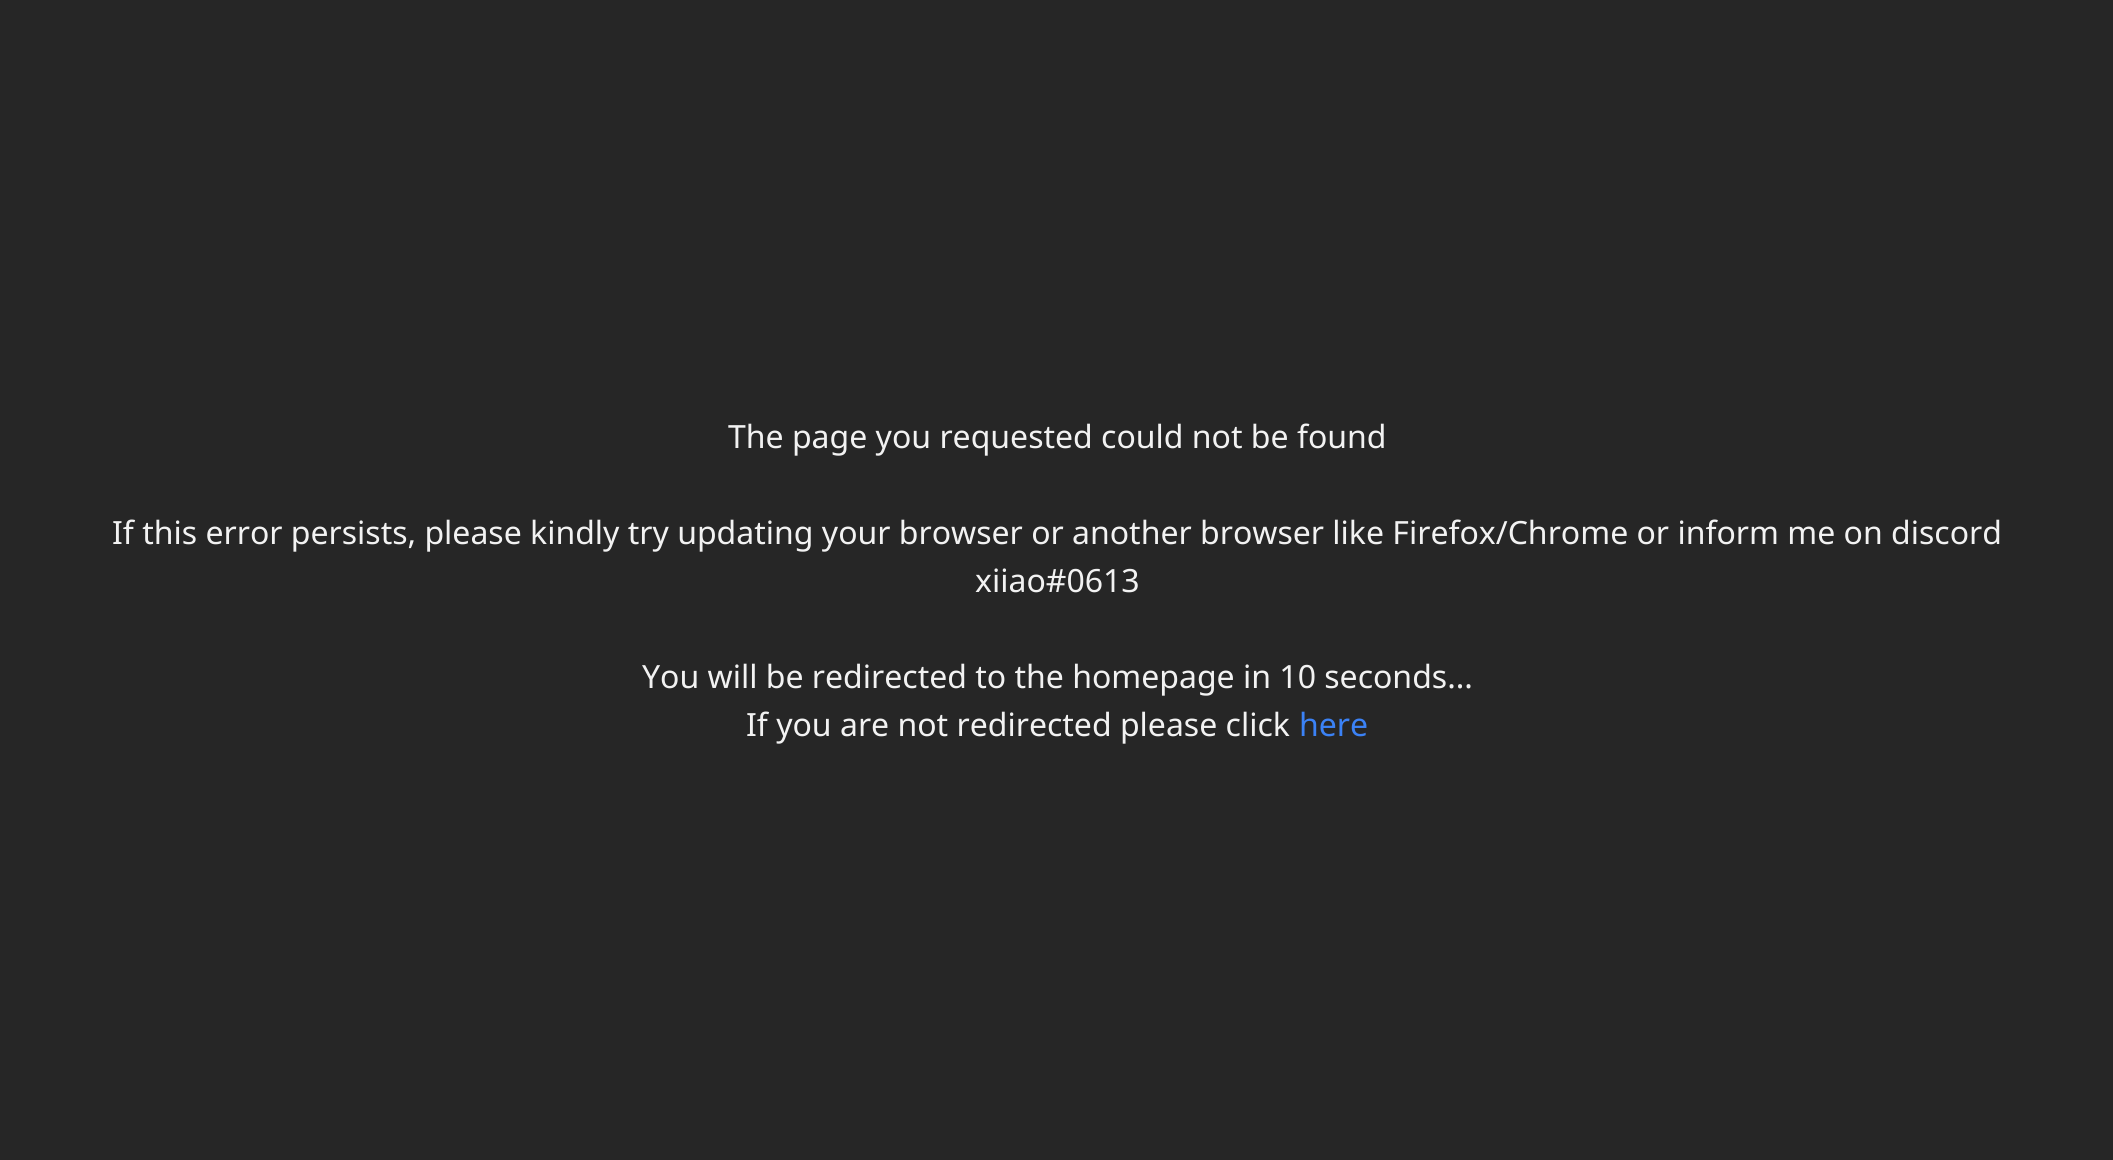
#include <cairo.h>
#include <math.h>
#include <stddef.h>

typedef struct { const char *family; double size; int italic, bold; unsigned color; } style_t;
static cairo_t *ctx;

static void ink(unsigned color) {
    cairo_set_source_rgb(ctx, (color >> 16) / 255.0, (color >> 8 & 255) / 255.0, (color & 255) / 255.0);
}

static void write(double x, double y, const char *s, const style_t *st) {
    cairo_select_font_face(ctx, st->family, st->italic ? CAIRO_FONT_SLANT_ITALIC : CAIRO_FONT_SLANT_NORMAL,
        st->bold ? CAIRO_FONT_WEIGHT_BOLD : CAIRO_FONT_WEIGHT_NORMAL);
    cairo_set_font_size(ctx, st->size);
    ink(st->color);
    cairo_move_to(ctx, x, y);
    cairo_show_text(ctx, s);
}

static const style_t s1 = {"Noto Sans", 32, 0, 0, 0xf2f2f2};
static const style_t s2 = {"Noto Sans", 32, 0, 0, 0x3b82f6};

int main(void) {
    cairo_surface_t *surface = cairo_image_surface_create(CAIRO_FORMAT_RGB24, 2113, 1160);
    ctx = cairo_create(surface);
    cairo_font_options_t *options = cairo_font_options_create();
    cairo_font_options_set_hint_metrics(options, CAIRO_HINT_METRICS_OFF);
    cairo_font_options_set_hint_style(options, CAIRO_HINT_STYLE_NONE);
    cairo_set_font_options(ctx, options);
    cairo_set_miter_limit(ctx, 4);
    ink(0x262626);
    cairo_paint(ctx);
    write(728, 448, "The page you requested could not be found", &s1);
    write(112, 544, "If this error persists, please kindly try updating your browser or another browser like Firefox/Chrome or inform me on discord", &s1);
    write(975, 592, "xiiao#0613", &s1);
    write(642, 688, "You will be redirected to the homepage in 10 seconds...", &s1);
    write(746, 736, "If you are not redirected please click", &s1);
    write(1299, 736, "here", &s2);
    cairo_surface_write_to_png(surface, "screenshot.png");
    cairo_font_options_destroy(options);
    cairo_destroy(ctx);
    cairo_surface_destroy(surface);
    return 0;
}
